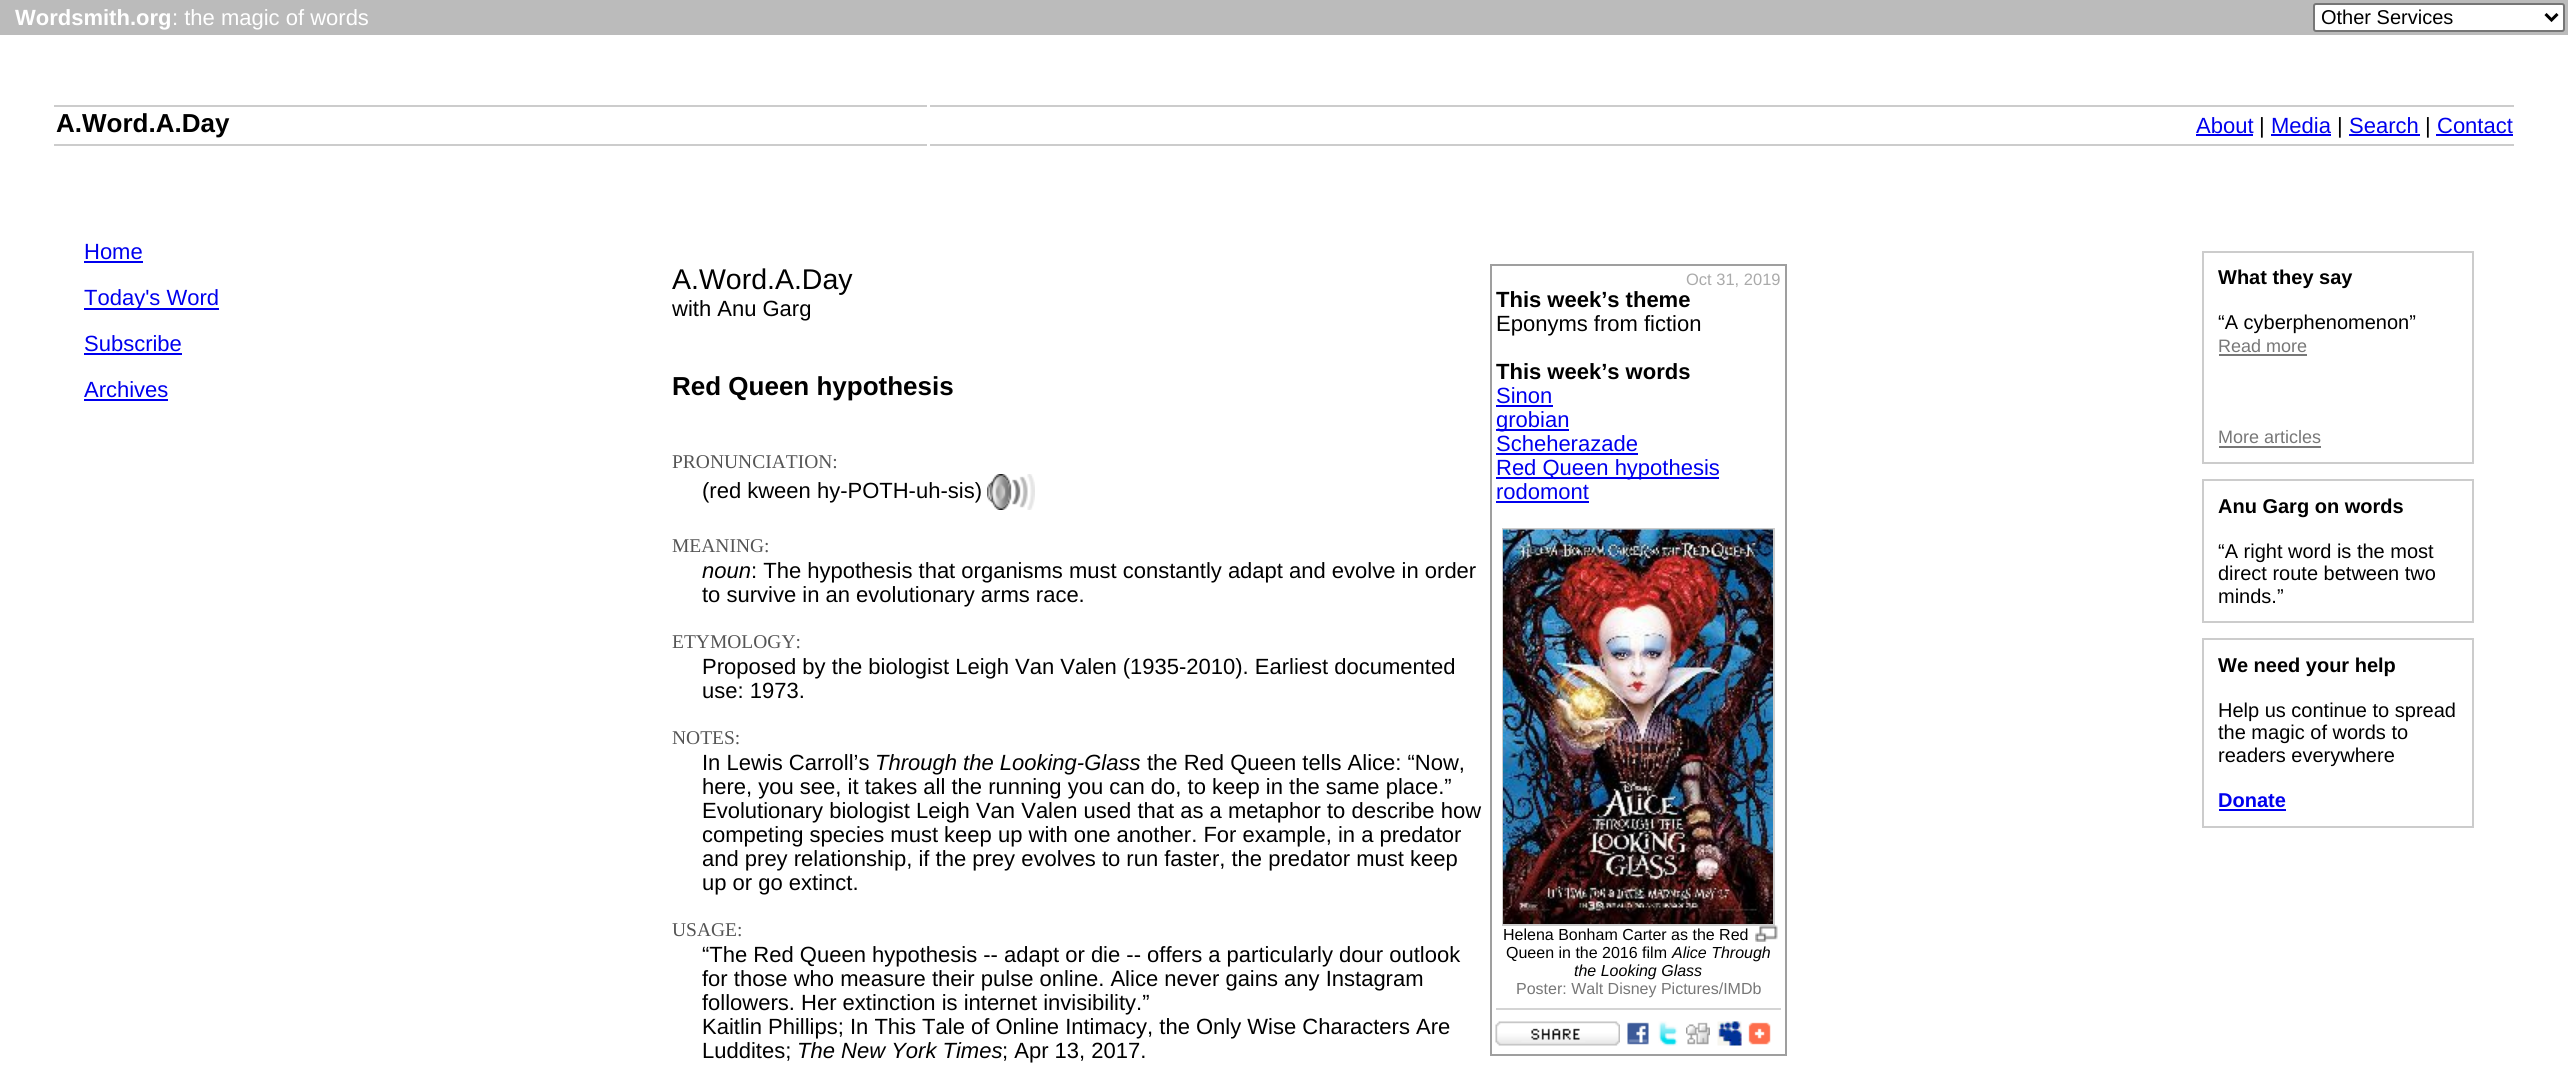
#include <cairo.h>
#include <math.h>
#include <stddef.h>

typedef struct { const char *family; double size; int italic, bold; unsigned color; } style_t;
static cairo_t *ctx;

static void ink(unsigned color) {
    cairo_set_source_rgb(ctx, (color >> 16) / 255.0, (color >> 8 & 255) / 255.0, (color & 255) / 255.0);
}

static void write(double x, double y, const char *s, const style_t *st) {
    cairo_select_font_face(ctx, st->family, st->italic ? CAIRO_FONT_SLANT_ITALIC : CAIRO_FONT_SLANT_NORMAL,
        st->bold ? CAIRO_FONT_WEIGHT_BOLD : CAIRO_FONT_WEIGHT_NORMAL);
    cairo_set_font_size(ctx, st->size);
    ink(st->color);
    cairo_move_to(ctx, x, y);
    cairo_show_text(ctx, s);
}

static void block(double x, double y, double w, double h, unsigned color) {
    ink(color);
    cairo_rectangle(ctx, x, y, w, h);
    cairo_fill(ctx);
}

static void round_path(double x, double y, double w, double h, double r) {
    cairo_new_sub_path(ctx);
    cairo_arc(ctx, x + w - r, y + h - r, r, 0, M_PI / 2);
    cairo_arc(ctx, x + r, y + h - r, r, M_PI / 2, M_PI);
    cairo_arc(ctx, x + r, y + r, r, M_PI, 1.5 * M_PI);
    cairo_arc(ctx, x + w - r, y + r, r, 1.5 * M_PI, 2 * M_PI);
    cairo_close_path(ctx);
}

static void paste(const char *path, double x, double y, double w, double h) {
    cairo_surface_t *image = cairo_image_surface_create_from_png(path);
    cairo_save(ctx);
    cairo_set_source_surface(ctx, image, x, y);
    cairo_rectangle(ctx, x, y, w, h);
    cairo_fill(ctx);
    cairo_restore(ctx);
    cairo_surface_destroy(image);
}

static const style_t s1 = {"Liberation Sans", 22, 0, 1, 0xffffff};
static const style_t s2 = {"Liberation Sans", 22, 0, 0, 0xffffff};
static const style_t s3 = {"Liberation Sans", 20, 0, 0, 0x000000};
static const style_t s4 = {"Liberation Sans", 26, 0, 1, 0x000000};
static const style_t s5 = {"Liberation Sans", 22, 0, 0, 0x0000ee};
static const style_t s6 = {"Liberation Sans", 22, 0, 0, 0x000000};
static const style_t s7 = {"Liberation Sans", 28.5, 0, 0, 0x000000};
static const style_t s8 = {"Liberation Sans", 16.5, 0, 0, 0xaaaaaa};
static const style_t s9 = {"Liberation Sans", 22, 0, 1, 0x000000};
static const style_t s10 = {"Liberation Sans", 16, 0, 0, 0x000000};
static const style_t s11 = {"Liberation Sans", 16, 1, 0, 0x000000};
static const style_t s12 = {"Liberation Sans", 16, 0, 0, 0x777777};
static const style_t s13 = {"Liberation Serif", 19.5, 0, 0, 0x555555};
static const style_t s14 = {"Liberation Sans", 22, 1, 0, 0x000000};
static const style_t s15 = {"Liberation Sans", 20, 0, 1, 0x000000};
static const style_t s16 = {"Liberation Sans", 18, 0, 0, 0x777777};
static const style_t s17 = {"Liberation Sans", 20, 0, 1, 0x0000ee};

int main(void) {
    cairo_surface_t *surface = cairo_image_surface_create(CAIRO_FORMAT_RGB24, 2568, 1065);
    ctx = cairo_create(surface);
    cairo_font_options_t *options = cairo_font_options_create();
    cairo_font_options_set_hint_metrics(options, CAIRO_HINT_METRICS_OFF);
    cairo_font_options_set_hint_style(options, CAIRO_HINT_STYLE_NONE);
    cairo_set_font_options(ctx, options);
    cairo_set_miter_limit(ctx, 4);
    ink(0xffffff);
    cairo_paint(ctx);
    block(0, 0, 2568, 35, 0xbbbbbb);
    write(15, 25, "Wordsmith.org", &s1);
    write(172, 25, ": the magic of words", &s2);
    round_path(2314, 4, 250, 27, 2);
    cairo_fill_preserve(ctx);
    ink(0x767676);
    cairo_stroke(ctx);
    cairo_new_path(ctx);
    cairo_move_to(ctx, 2545.5, 14);
    cairo_line_to(ctx, 2551.5, 20);
    cairo_line_to(ctx, 2557.5, 14);
    ink(0x000000);
    cairo_set_line_width(ctx, 3);
    cairo_stroke(ctx);
    write(2321, 24, "Other Services", &s3);
    block(54, 105, 873, 2, 0xcccccc);
    block(54, 144, 873, 2, 0xcccccc);
    write(56, 132, "A.Word.A.Day", &s4);
    block(930, 105, 1584, 2, 0xcccccc);
    block(930, 144, 1584, 2, 0xcccccc);
    write(2196, 133, "About", &s5);
    block(2196, 134, 57, 2, 0x0000ee);
    write(2259, 133, "|", &s6);
    write(2271, 133, "Media", &s5);
    block(2271, 134, 60, 2, 0x0000ee);
    write(2337, 133, "|", &s6);
    write(2349, 133, "Search", &s5);
    block(2349, 134, 71, 2, 0x0000ee);
    write(2425, 133, "|", &s6);
    write(2437, 133, "Contact", &s5);
    block(2436, 134, 77, 2, 0x0000ee);
    write(84, 259, "Home", &s5);
    block(84, 261, 59, 2, 0x0000ee);
    block(84, 308, 135, 2, 0x0000ee);
    write(84, 305, "Today's Word", &s5);
    write(84, 351, "Subscribe", &s5);
    block(84, 353, 98, 2, 0x0000ee);
    write(84, 397, "Archives", &s5);
    block(84, 399, 84, 2, 0x0000ee);
    write(672, 289, "A.Word.A.Day", &s7);
    cairo_rectangle(ctx, 1491, 265, 295, 790);
    ink(0x9f9f9f);
    cairo_set_line_width(ctx, 2);
    cairo_stroke(ctx);
    write(1686, 285, "Oct 31, 2019", &s8);
    write(1496, 307, "This week’s theme", &s9);
    write(1496, 331, "Eponyms from fiction", &s6);
    write(1496, 379, "This week’s words", &s9);
    write(1496, 403, "Sinon", &s5);
    block(1496, 405, 57, 2, 0x0000ee);
    block(1496, 429, 73, 2, 0x0000ee);
    write(1496, 427, "grobian", &s5);
    write(1496, 451, "Scheherazade", &s5);
    block(1496, 453, 142, 2, 0x0000ee);
    block(1496, 477, 223, 2, 0x0000ee);
    write(1496, 475, "Red Queen hypothesis", &s5);
    write(1496, 499, "rodomont", &s5);
    block(1496, 501, 93, 2, 0x0000ee);
    cairo_rectangle(ctx, 1503, 529, 271, 396);
    ink(0xcccccc);
    cairo_stroke(ctx);
    paste("pic1.png", 1503, 529, 270, 395);
    paste("pic2.png", 1755, 925, 23, 17);
    write(1503, 940, "Helena Bonham Carter as the Red", &s10);
    write(1506, 958, "Queen in the 2016 film", &s10);
    write(1672, 958, "Alice Through", &s11);
    write(1574, 976, "the Looking Glass", &s11);
    write(1516, 994, "Poster: Walt Disney Pictures/IMDb", &s12);
    block(1496, 1008, 285, 2, 0xd4d4d4);
    paste("pic3.png", 1495, 1021, 125, 25);
    paste("pic4.png", 1627, 1022, 22, 23);
    paste("pic5.png", 1658, 1021, 20, 25);
    paste("pic6.png", 1686, 1022, 24, 23);
    paste("pic7.png", 1717, 1021, 25, 25);
    paste("pic8.png", 1748, 1022, 23, 23);
    write(672, 316, "with Anu Garg", &s6);
    write(672, 395, "Red Queen hypothesis", &s4);
    write(672, 468, "PRONUNCIATION:", &s13);
    write(702, 498, "(red kween hy-POTH-uh-sis)", &s6);
    paste("pic9.png", 987, 474, 48, 36);
    write(672, 552, "MEANING:", &s13);
    write(702, 578, "noun", &s14);
    write(751, 578, ": The hypothesis that organisms must constantly adapt and evolve in order", &s6);
    write(702, 602, "to survive in an evolutionary arms race.", &s6);
    write(672, 648, "ETYMOLOGY:", &s13);
    write(702, 674, "Proposed by the biologist Leigh Van Valen (1935-2010). Earliest documented", &s6);
    write(702, 698, "use: 1973.", &s6);
    write(672, 744, "NOTES:", &s13);
    write(702, 770, "In Lewis Carroll’s", &s6);
    write(875, 770, "Through the Looking-Glass", &s14);
    write(1147, 770, "the Red Queen tells Alice: “Now,", &s6);
    write(702, 794, "here, you see, it takes all the running you can do, to keep in the same place.”", &s6);
    write(702, 818, "Evolutionary biologist Leigh Van Valen used that as a metaphor to describe how", &s6);
    write(702, 842, "competing species must keep up with one another. For example, in a predator", &s6);
    write(702, 866, "and prey relationship, if the prey evolves to run faster, the predator must keep", &s6);
    write(702, 890, "up or go extinct.", &s6);
    write(672, 936, "USAGE:", &s13);
    write(702, 962, "“The Red Queen hypothesis -- adapt or die -- offers a particularly dour outlook", &s6);
    write(702, 986, "for those who measure their pulse online. Alice never gains any Instagram", &s6);
    write(702, 1010, "followers. Her extinction is internet invisibility.”", &s6);
    write(702, 1034, "Kaitlin Phillips; In This Tale of Online Intimacy, the Only Wise Characters Are", &s6);
    write(702, 1058, "Luddites;", &s6);
    write(797, 1058, "The New York Times", &s14);
    write(1002, 1058, "; Apr 13, 2017.", &s6);
    cairo_rectangle(ctx, 2203, 252, 270, 211);
    ink(0xcccccc);
    cairo_stroke(ctx);
    write(2218, 284, "What they say", &s15);
    write(2218, 329, "“A cyberphenomenon”", &s3);
    write(2218, 352, "Read more", &s16);
    block(2219, 354, 88, 2, 0x777777);
    write(2218, 443, "More articles", &s16);
    block(2219, 446, 102, 2, 0x777777);
    cairo_rectangle(ctx, 2203, 480, 270, 142);
    ink(0xcccccc);
    cairo_stroke(ctx);
    write(2218, 513, "Anu Garg on words", &s15);
    write(2218, 558, "“A right word is the most", &s3);
    write(2218, 580, "direct route between two", &s3);
    write(2218, 603, "minds.”", &s3);
    cairo_rectangle(ctx, 2203, 639, 270, 188);
    ink(0xcccccc);
    cairo_stroke(ctx);
    write(2218, 672, "We need your help", &s15);
    write(2218, 717, "Help us continue to spread", &s3);
    write(2218, 739, "the magic of words to", &s3);
    write(2218, 762, "readers everywhere", &s3);
    write(2218, 807, "Donate", &s17);
    block(2219, 809, 67, 2, 0x0000ee);
    cairo_surface_write_to_png(surface, "screenshot.png");
    cairo_font_options_destroy(options);
    cairo_destroy(ctx);
    cairo_surface_destroy(surface);
    return 0;
}
